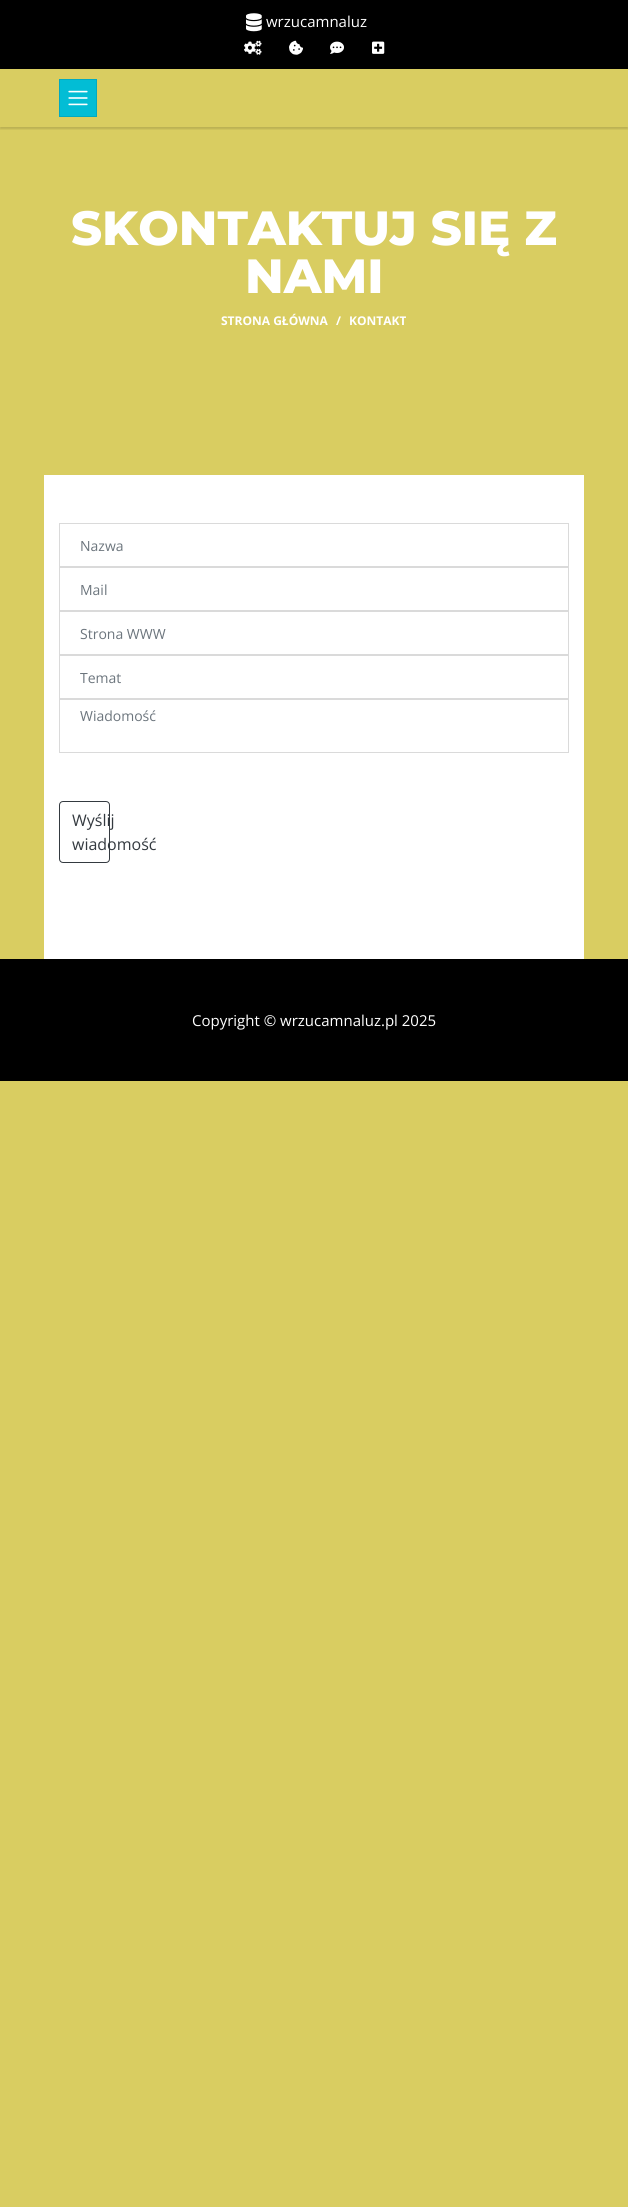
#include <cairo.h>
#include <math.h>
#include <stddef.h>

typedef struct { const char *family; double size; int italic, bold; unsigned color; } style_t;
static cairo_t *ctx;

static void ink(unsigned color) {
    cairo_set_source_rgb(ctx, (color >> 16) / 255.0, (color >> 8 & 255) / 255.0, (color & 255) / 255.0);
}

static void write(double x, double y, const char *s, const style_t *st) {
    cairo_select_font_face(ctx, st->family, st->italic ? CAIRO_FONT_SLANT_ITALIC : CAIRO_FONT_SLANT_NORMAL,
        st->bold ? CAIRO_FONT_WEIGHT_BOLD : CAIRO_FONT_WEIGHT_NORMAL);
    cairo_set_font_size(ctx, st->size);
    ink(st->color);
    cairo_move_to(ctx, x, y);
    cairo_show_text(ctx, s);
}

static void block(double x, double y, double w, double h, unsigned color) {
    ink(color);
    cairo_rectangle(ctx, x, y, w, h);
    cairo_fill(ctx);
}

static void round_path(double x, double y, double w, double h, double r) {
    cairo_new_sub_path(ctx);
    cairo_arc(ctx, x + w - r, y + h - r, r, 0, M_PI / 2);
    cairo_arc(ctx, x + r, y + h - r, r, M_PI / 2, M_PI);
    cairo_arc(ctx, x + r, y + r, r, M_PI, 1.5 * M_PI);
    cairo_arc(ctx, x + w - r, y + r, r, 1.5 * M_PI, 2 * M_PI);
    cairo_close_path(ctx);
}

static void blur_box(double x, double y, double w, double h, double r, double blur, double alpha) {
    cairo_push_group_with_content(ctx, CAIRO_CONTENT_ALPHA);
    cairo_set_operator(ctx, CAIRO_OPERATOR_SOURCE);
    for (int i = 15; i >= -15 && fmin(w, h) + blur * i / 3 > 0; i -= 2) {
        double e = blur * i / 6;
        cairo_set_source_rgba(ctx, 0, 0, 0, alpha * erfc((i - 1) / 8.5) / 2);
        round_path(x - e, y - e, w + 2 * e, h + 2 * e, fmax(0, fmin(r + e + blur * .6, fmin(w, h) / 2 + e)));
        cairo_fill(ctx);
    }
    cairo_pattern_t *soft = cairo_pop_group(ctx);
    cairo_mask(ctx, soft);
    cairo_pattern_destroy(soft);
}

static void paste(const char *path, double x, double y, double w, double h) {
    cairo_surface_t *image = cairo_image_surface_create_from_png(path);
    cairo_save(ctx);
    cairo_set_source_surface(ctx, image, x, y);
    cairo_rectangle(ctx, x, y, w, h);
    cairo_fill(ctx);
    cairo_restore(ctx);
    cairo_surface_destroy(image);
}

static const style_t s1 = {"Open Sans", 15, 0, 0, 0xffffff};
static const style_t s2 = {"Montserrat ExtraBold", 48, 0, 0, 0xffffff};
static const style_t s3 = {"Open Sans", 12, 0, 1, 0xffffff};
static const style_t s4 = {"Open Sans", 14, 0, 0, 0x6c757d};
static const style_t s5 = {"Open Sans", 16, 0, 0, 0x343a40};

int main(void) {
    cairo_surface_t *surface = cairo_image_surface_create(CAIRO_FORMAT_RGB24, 628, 2207);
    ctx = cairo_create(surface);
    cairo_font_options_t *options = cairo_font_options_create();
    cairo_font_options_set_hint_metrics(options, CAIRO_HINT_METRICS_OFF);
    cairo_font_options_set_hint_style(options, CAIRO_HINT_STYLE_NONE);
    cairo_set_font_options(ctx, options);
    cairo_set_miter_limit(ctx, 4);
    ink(0xd9cd61);
    cairo_paint(ctx);
    cairo_save(ctx);
    cairo_rectangle(ctx, 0, 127, 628, 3);
    cairo_clip(ctx);
    ink(0x000000);
    blur_box(0, 71, 628, 58, 0, 1, 0.15);
    cairo_restore(ctx);
    block(0, 0, 628, 69, 0x000000);
    paste("pic1.png", 246, 13, 16, 19);
    write(266, 27, "wrzucamnaluz", &s1);
    paste("pic2.png", 244, 40, 18, 15);
    paste("pic3.png", 289, 40, 14, 15);
    paste("pic4.png", 330, 41, 14, 13);
    paste("pic5.png", 372, 41, 13, 13);
    ink(0x02bdd5);
    cairo_rectangle(ctx, 59.5, 79.5, 37, 37);
    cairo_fill_preserve(ctx);
    ink(0x02aac0);
    cairo_set_line_width(ctx, 1);
    cairo_stroke(ctx);
    paste("pic6.png", 68, 90, 20, 16);
    write(71, 245, "SKONTAKTUJ SIĘ Z", &s2);
    write(245, 293, "NAMI", &s2);
    write(221, 325, "STRONA GŁÓWNA", &s3);
    write(336, 325, "/", &s3);
    write(349, 325, "KONTAKT", &s3);
    block(44, 475, 540, 484, 0xffffff);
    cairo_rectangle(ctx, 59.5, 523.5, 509, 43);
    ink(0xdadada);
    cairo_stroke(ctx);
    write(80, 551, "Nazwa", &s4);
    cairo_rectangle(ctx, 59.5, 567.5, 509, 43);
    ink(0xdadada);
    cairo_stroke(ctx);
    write(80, 595, "Mail", &s4);
    cairo_rectangle(ctx, 59.5, 611.5, 509, 43);
    ink(0xdadada);
    cairo_stroke(ctx);
    write(80, 639, "Strona WWW", &s4);
    cairo_rectangle(ctx, 59.5, 655.5, 509, 43);
    ink(0xdadada);
    cairo_stroke(ctx);
    write(80, 683, "Temat", &s4);
    cairo_rectangle(ctx, 59.5, 699.5, 509, 53);
    ink(0xdadada);
    cairo_stroke(ctx);
    write(80, 721, "Wiadomość", &s4);
    round_path(59.5, 801.5, 50, 61, 3.5);
    ink(0x343a40);
    cairo_stroke(ctx);
    write(72, 826, "Wyślij", &s5);
    write(72, 850, "wiadomość", &s5);
    block(0, 959, 628, 122, 0x000000);
    write(192, 1026, "Copyright © wrzucamnaluz.pl 2025", &s1);
    cairo_surface_write_to_png(surface, "screenshot.png");
    cairo_font_options_destroy(options);
    cairo_destroy(ctx);
    cairo_surface_destroy(surface);
    return 0;
}
